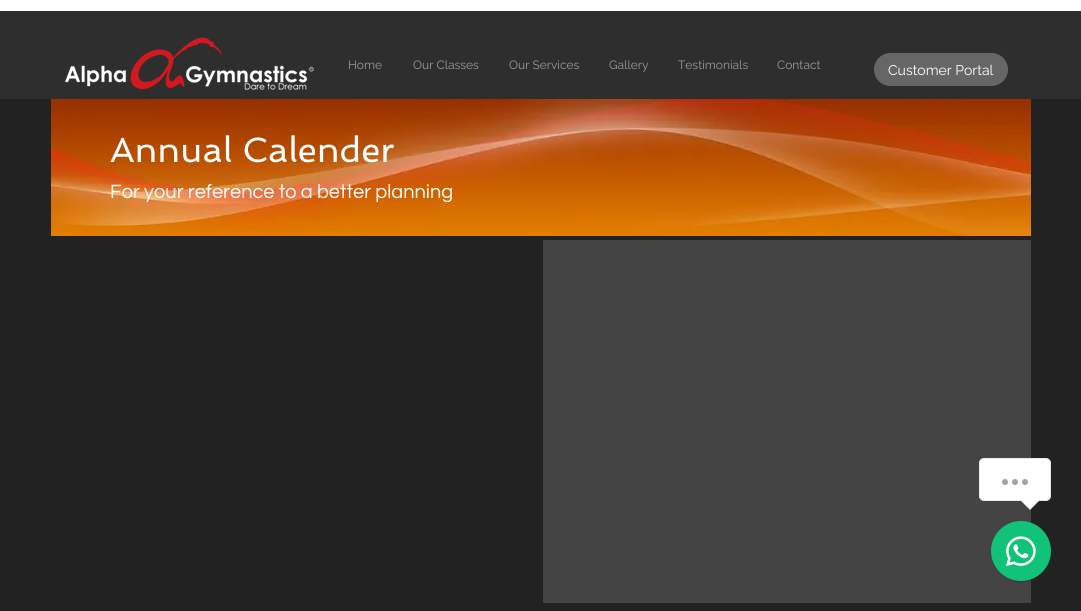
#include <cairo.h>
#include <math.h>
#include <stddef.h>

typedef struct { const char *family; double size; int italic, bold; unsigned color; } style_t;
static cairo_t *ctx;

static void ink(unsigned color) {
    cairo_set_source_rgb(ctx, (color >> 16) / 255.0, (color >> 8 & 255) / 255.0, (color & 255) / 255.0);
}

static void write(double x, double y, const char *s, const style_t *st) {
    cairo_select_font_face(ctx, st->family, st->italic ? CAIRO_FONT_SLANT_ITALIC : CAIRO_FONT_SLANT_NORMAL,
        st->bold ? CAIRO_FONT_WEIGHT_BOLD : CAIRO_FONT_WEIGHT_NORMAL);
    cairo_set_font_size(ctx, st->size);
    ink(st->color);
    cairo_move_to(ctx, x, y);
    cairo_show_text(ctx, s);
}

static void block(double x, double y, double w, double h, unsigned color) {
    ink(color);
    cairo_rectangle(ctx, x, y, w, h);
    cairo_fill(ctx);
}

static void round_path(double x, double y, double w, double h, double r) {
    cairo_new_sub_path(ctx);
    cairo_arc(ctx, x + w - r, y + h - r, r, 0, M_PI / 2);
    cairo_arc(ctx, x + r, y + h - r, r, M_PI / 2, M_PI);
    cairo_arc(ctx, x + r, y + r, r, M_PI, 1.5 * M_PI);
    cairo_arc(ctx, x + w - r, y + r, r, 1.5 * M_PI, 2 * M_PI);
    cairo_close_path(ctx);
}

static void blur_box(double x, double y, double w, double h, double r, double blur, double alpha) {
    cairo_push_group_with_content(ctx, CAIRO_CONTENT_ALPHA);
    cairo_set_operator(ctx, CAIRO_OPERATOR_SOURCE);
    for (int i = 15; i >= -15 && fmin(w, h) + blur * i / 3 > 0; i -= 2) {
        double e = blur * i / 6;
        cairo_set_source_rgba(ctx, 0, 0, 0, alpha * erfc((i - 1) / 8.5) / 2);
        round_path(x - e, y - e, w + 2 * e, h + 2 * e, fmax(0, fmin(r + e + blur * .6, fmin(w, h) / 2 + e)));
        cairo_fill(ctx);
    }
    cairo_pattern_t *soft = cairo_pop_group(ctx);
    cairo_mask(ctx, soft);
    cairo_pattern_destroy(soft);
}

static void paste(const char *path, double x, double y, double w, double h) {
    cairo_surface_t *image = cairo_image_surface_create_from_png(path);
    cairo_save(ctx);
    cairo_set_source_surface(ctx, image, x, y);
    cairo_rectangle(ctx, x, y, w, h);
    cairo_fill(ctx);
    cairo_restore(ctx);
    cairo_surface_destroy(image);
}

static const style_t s1 = {"Raleway", 12, 0, 0, 0x999999};
static const style_t s2 = {"Raleway", 14, 0, 0, 0xffffff};
static const style_t s3 = {"Spinnaker", 35, 0, 0, 0xffffff};
static const style_t s4 = {"Questrial", 20, 0, 0, 0xffffff};

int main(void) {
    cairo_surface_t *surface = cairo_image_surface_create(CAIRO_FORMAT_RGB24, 1081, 611);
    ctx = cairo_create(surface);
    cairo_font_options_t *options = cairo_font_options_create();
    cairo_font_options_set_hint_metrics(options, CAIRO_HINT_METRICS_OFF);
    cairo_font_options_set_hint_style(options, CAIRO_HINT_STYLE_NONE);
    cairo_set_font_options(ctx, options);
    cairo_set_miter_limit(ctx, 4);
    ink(0xffffff);
    cairo_paint(ctx);
    block(0, 11, 1081, 88, 0x2f2e2e);
    write(348, 69, "Home", &s1);
    write(413, 69, "Our Classes", &s1);
    write(509, 69, "Our Services", &s1);
    write(609, 69, "Gallery", &s1);
    write(678, 69, "Testimonials", &s1);
    write(777, 69, "Contact", &s1);
    paste("pic1.png", 65, 37, 249, 53);
    ink(0x666666);
    round_path(874, 53, 134, 33, 16.5);
    cairo_fill(ctx);
    write(888, 75, "Customer Portal", &s2);
    block(0, 99, 1081, 512, 0x222222);
    paste("pic2.png", 51, 99, 980, 137);
    write(110, 162, "Annual Calender", &s3);
    write(110, 198, "For your reference to a better planning", &s4);
    block(543, 240, 488, 363, 0x444444);
    ink(0xffffff);
    round_path(979.5, 458.5, 71, 42, 4.5);
    cairo_fill_preserve(ctx);
    ink(0xe9e9e9);
    cairo_set_line_width(ctx, 1);
    cairo_stroke(ctx);
    ink(0x9fa4a8);
    cairo_arc(ctx, 1005, 482, 3, 0, 2 * M_PI);
    cairo_fill(ctx);
    cairo_arc(ctx, 1015, 482, 3, 0, 2 * M_PI);
    cairo_fill(ctx);
    cairo_arc(ctx, 1025, 482, 3, 0, 2 * M_PI);
    cairo_fill(ctx);
    ink(0xe9e9e9);
    cairo_new_path(ctx);
    cairo_move_to(ctx, 1020, 500);
    cairo_line_to(ctx, 1040, 500);
    cairo_line_to(ctx, 1030, 510);
    cairo_close_path(ctx);
    cairo_fill(ctx);
    ink(0xffffff);
    cairo_new_path(ctx);
    cairo_move_to(ctx, 1021, 500);
    cairo_line_to(ctx, 1039, 500);
    cairo_line_to(ctx, 1030, 509);
    cairo_close_path(ctx);
    cairo_fill(ctx);
    ink(0x000000);
    blur_box(991, 522, 60, 60, 30, 1, 0.15);
    ink(0x10c379);
    cairo_arc(ctx, 1021, 551, 30, 0, 2 * M_PI);
    cairo_fill(ctx);
    paste("pic3.png", 1006, 536, 30, 31);
    cairo_surface_write_to_png(surface, "screenshot.png");
    cairo_font_options_destroy(options);
    cairo_destroy(ctx);
    cairo_surface_destroy(surface);
    return 0;
}
